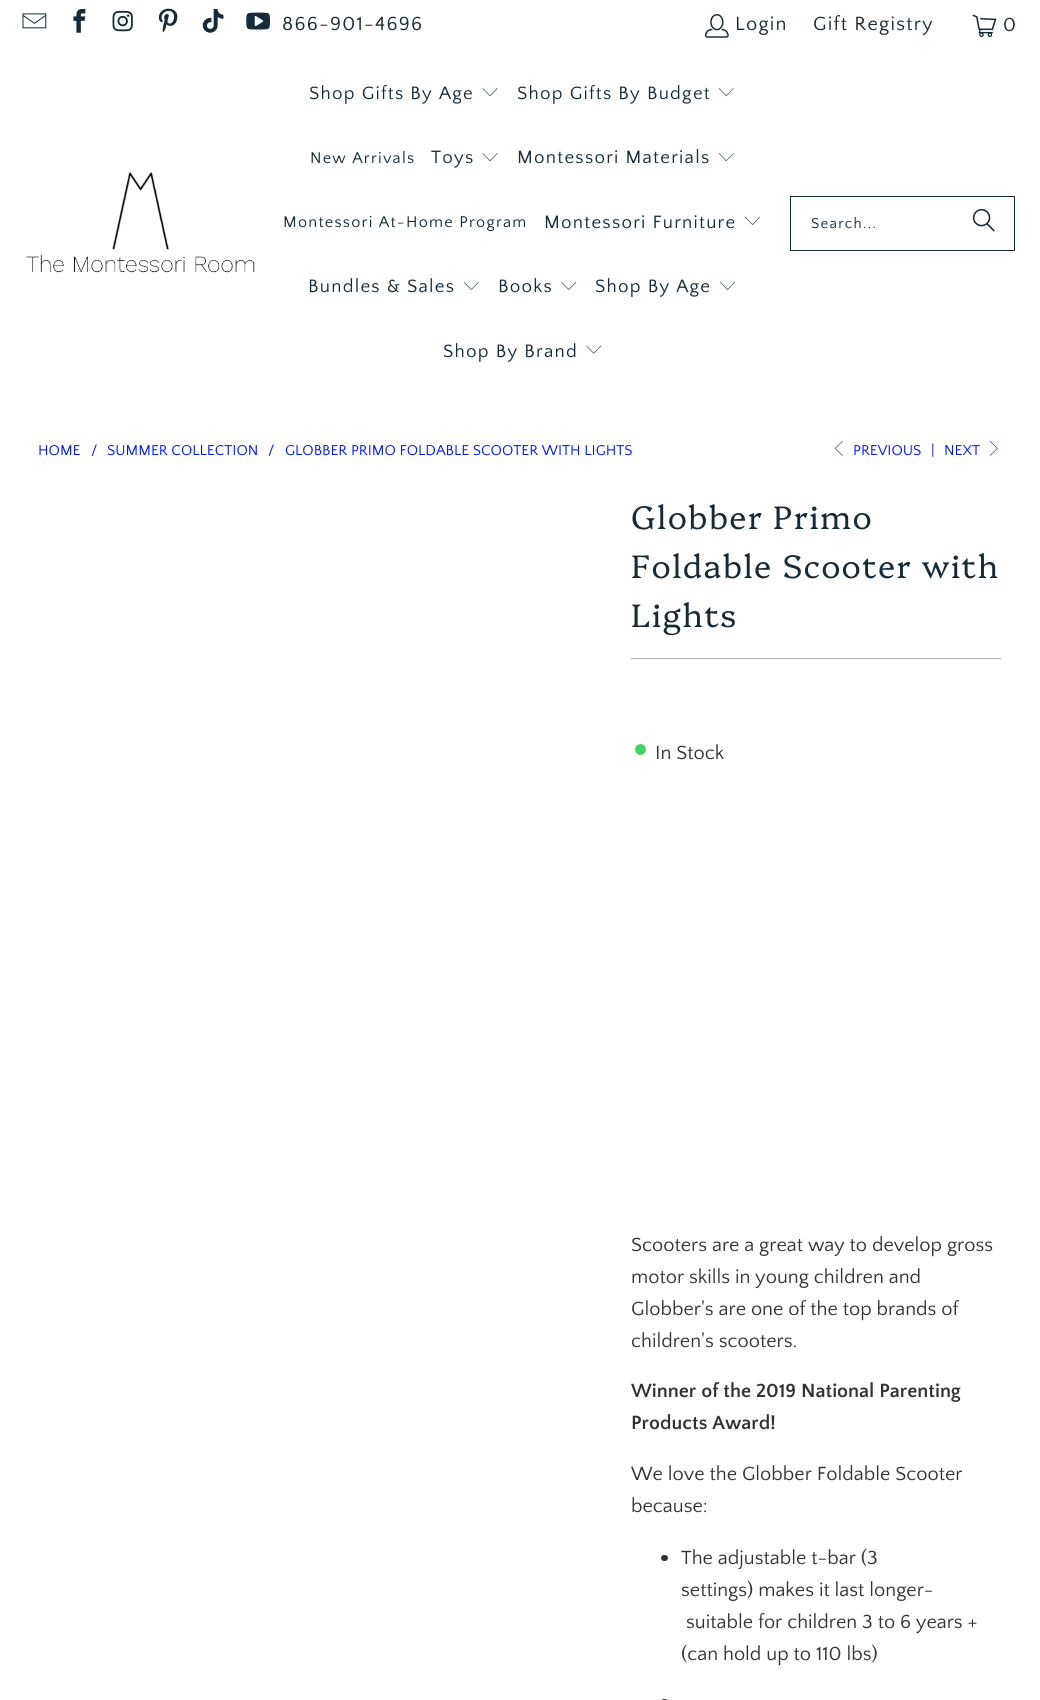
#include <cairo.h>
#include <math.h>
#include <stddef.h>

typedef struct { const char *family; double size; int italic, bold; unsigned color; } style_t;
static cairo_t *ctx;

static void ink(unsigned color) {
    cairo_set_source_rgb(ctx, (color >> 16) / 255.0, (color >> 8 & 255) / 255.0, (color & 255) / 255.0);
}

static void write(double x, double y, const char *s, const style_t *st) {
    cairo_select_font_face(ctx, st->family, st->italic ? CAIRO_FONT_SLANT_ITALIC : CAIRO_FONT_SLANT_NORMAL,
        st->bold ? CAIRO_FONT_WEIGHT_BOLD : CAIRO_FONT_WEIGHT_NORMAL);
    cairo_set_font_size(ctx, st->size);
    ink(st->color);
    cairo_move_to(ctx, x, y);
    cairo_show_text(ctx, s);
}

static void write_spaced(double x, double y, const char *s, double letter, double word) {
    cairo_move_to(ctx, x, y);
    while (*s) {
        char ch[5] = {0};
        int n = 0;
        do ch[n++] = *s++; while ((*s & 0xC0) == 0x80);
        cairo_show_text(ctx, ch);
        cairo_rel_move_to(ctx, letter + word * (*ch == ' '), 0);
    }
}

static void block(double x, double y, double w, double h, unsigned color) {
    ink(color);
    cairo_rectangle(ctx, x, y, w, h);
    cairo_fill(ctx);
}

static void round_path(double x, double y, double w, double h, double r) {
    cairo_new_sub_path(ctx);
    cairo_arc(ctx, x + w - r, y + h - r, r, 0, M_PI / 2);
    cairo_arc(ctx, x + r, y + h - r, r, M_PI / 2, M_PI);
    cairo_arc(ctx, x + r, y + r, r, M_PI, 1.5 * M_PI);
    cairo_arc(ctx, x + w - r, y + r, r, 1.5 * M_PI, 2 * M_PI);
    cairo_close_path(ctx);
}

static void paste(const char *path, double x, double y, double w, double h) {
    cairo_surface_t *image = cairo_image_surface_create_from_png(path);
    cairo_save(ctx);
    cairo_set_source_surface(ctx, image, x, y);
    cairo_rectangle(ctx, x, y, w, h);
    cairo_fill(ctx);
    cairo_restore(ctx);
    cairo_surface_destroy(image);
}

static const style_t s1 = {"Quattrocento Sans", 15, 0, 0, 0x001bff};
static const style_t s2 = {"Quattrocento Sans", 20, 0, 0, 0x333333};
static const style_t s3 = {"Quattrocento Sans", 20, 0, 1, 0x333333};

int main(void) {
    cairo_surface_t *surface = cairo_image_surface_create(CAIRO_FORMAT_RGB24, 1040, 1700);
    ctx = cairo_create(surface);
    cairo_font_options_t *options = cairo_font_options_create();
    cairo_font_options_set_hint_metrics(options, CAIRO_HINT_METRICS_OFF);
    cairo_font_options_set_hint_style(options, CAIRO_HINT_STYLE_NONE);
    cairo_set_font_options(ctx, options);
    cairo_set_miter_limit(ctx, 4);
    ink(0xffffff);
    cairo_paint(ctx);
    paste("pic1.png", 22, 13, 25, 16);
    paste("pic2.png", 73, 9, 13, 24);
    paste("pic3.png", 112, 10, 21, 22);
    paste("pic4.png", 158, 8, 20, 25);
    paste("pic5.png", 202, 9, 22, 24);
    paste("pic6.png", 246, 12, 24, 18);
    cairo_select_font_face(ctx, "Quattrocento Sans", CAIRO_FONT_SLANT_NORMAL, CAIRO_FONT_WEIGHT_NORMAL);
    cairo_set_font_size(ctx, 20);
    ink(0x142b3b);
    write_spaced(282, 30, "866-901-4696", 1.25, 0);
    paste("pic7.png", 705, 14, 24, 24);
    write_spaced(735, 30, "Login", 1.25, 0);
    write_spaced(813, 30, "Gift Registry", 1.25, 0);
    paste("pic8.png", 972, 14, 25, 23);
    write_spaced(1003, 31, "0", 1.25, 0);
    paste("pic9.png", 26, 172, 229, 101);
    cairo_set_font_size(ctx, 18.75);
    write_spaced(309, 99, "Shop Gifts By Age", 1.25, 0);
    paste("pic10.png", 482, 88, 16, 9);
    write_spaced(517, 99, "Shop Gifts By Budget", 1.25, 0);
    paste("pic11.png", 718, 88, 16, 9);
    cairo_set_font_size(ctx, 16.25);
    write_spaced(310, 163, "New Arrivals", 1.25, 0);
    cairo_set_font_size(ctx, 18.75);
    write_spaced(431, 163, "Toys", 1.25, 0);
    paste("pic10.png", 482, 153, 16, 9);
    write_spaced(517, 163, "Montessori Materials", 1.25, 0);
    paste("pic11.png", 718, 153, 16, 9);
    cairo_set_font_size(ctx, 16.25);
    write_spaced(283, 227, "Montessori At-Home Program", 1.25, 0);
    cairo_set_font_size(ctx, 18.75);
    write_spaced(544, 228, "Montessori Furniture", 1.25, 0);
    paste("pic12.png", 745, 217, 15, 8);
    write_spaced(308, 292, "Bundles & Sales", 1.25, 0);
    paste("pic13.png", 463, 282, 16, 8);
    write_spaced(498, 292, "Books", 1.25, 0);
    paste("pic14.png", 561, 282, 16, 8);
    write_spaced(595, 292, "Shop By Age", 1.25, 0);
    paste("pic12.png", 720, 282, 15, 8);
    write_spaced(443, 357, "Shop By Brand", 1.25, 0);
    paste("pic15.png", 586, 345, 16, 9);
    cairo_rectangle(ctx, 790.5, 196.5, 224, 54);
    cairo_set_line_width(ctx, 1);
    cairo_stroke(ctx);
    cairo_set_font_size(ctx, 15);
    write_spaced(811, 228, "Search...", 1.25, 0);
    paste("pic16.png", 972, 208, 23, 24);
    write(38, 455, "HOME", &s1);
    write(91, 455, "/", &s1);
    write(107, 455, "SUMMER COLLECTION", &s1);
    write(268, 455, "/", &s1);
    write(285, 455, "GLOBBER PRIMO FOLDABLE SCOOTER WITH LIGHTS", &s1);
    paste("pic17.png", 834, 441, 9, 15);
    write(853, 455, "PREVIOUS", &s1);
    write(931, 455, "|", &s1);
    write(944, 455, "NEXT", &s1);
    paste("pic18.png", 989, 441, 9, 15);
    cairo_select_font_face(ctx, "Platypi Light", CAIRO_FONT_SLANT_NORMAL, CAIRO_FONT_WEIGHT_NORMAL);
    cairo_set_font_size(ctx, 32.5);
    ink(0x142b3b);
    write_spaced(631, 529, "Globber Primo", 1.25, 0);
    write_spaced(631, 578, "Foldable Scooter with", 1.25, 0);
    write_spaced(631, 627, "Lights", 1.25, 0);
    block(631, 658, 370, 1, 0xb1b1b1);
    ink(0x3ed660);
    cairo_new_path(ctx);
    cairo_arc(ctx, 640.5, 749.5, 6, 0, 2 * M_PI);
    cairo_fill_preserve(ctx);
    ink(0xffffff);
    cairo_set_line_width(ctx, 1.2);
    cairo_stroke(ctx);
    write(655, 759, "In Stock", &s2);
    write(631, 1251, "Scooters are a great way to develop gross", &s2);
    write(631, 1283, "motor skills in young children and", &s2);
    write(631, 1315, "Globber's are one of the top brands of", &s2);
    write(631, 1347, "children's scooters.", &s2);
    write(631, 1397, "Winner of the 2019 National Parenting", &s3);
    write(631, 1429, "Products Award!", &s3);
    write(631, 1480, "We love the Globber Foldable Scooter", &s2);
    write(631, 1512, "because:", &s2);
    round_path(661, 1555, 7, 6, 3);
    cairo_fill(ctx);
    write(681, 1564, "The adjustable t-bar (3", &s2);
    write(681, 1596, "settings) makes it last longer-", &s2);
    write(686, 1628, "suitable for children 3 to 6 years +", &s2);
    write(681, 1660, "(can hold up to 110 lbs)", &s2);
    round_path(661, 1699, 7, 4, 3);
    cairo_fill(ctx);
    cairo_surface_write_to_png(surface, "screenshot.png");
    cairo_font_options_destroy(options);
    cairo_destroy(ctx);
    cairo_surface_destroy(surface);
    return 0;
}
